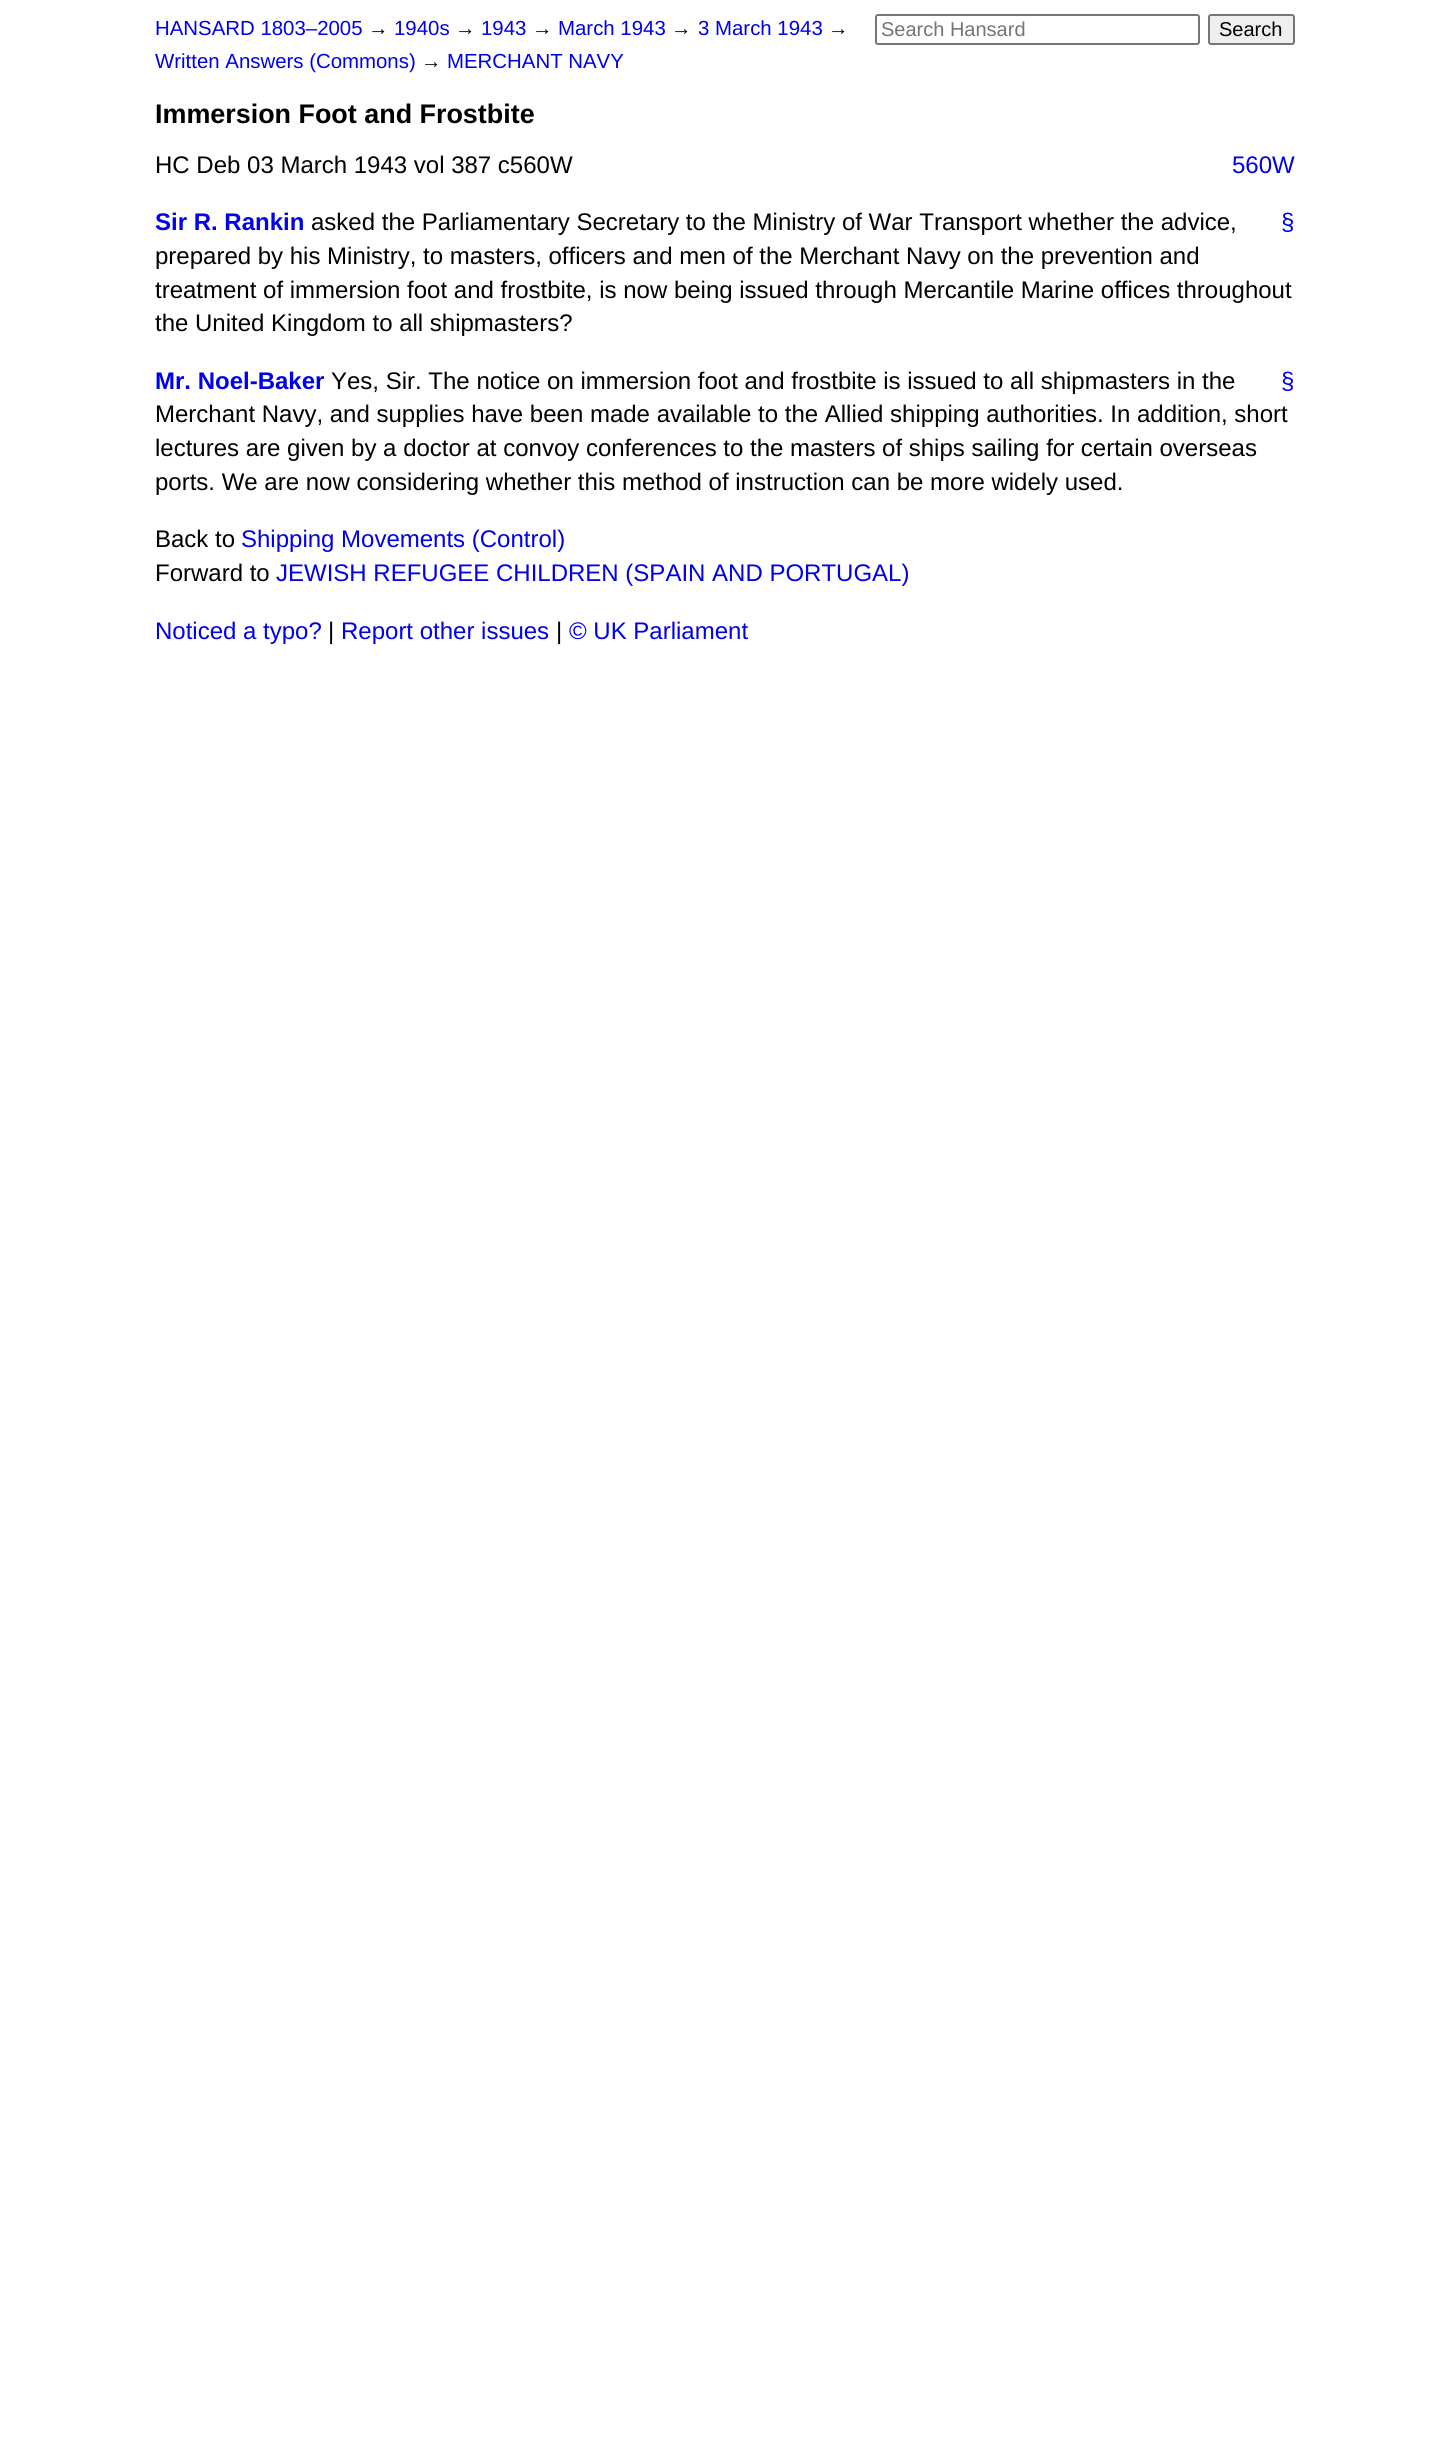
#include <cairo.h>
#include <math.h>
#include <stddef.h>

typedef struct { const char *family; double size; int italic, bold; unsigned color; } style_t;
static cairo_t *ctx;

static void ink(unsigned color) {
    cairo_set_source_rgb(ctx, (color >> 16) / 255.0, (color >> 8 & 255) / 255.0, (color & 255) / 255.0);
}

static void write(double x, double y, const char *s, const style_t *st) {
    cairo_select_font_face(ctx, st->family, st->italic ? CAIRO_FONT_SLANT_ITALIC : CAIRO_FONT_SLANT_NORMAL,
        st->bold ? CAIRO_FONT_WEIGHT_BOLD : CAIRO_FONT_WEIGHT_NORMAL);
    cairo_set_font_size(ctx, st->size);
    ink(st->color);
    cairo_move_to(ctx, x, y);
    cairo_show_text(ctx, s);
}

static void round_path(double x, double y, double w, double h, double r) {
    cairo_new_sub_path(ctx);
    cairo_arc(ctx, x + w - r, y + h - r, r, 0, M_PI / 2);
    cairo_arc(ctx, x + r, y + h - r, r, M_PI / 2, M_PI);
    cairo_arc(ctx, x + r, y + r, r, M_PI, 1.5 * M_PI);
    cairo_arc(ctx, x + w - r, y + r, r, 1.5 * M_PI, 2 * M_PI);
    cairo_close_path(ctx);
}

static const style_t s1 = {"Liberation Sans", 20.4, 0, 0, 0x0000ee};
static const style_t s2 = {"Liberation Sans", 20.4, 0, 0, 0x000000};
static const style_t s3 = {"Liberation Sans", 20, 0, 0, 0x757575};
static const style_t s4 = {"Liberation Sans", 20, 0, 0, 0x000000};
static const style_t s5 = {"Liberation Sans", 26.9, 0, 1, 0x000000};
static const style_t s6 = {"Liberation Sans", 24, 0, 0, 0x000000};
static const style_t s7 = {"Liberation Sans", 24, 0, 0, 0x0000ee};
static const style_t s8 = {"Liberation Sans", 24, 0, 1, 0x0000ee};

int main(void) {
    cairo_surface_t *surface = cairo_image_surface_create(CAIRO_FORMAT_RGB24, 1449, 2456);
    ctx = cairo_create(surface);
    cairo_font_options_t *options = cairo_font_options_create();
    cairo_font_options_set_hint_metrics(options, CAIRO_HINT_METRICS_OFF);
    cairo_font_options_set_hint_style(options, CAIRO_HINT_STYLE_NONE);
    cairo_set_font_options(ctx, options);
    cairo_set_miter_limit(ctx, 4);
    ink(0xffffff);
    cairo_paint(ctx);
    write(155, 35, "HANSARD 1803–2005", &s1);
    write(368, 35, "→", &s2);
    write(394, 35, "1940s", &s1);
    write(455, 35, "→", &s2);
    write(481, 35, "1943", &s1);
    write(532, 35, "→", &s2);
    write(558, 35, "March 1943", &s1);
    write(671, 35, "→", &s2);
    write(698, 35, "3 March 1943", &s1);
    write(828, 35, "→", &s2);
    write(155, 68, "Written Answers (Commons)", &s1);
    write(421, 68, "→", &s2);
    write(447, 68, "MERCHANT NAVY", &s1);
    round_path(876, 15, 323, 29, 2);
    ink(0x767676);
    cairo_stroke(ctx);
    write(881, 36, "Search Hansard", &s3);
    ink(0xefefef);
    round_path(1209, 15, 85, 29, 2);
    cairo_fill_preserve(ctx);
    ink(0x767676);
    cairo_stroke(ctx);
    write(1219, 36, "Search", &s4);
    write(155, 123, "Immersion Foot and Frostbite", &s5);
    write(155, 173, "HC Deb 03 March 1943 vol 387 c560W", &s6);
    write(1232, 173, "560W", &s7);
    write(155, 230, "Sir R. Rankin", &s8);
    write(311, 230, "asked the Parliamentary Secretary to the Ministry of War Transport whether the advice,", &s6);
    write(1281, 230, "§", &s7);
    write(155, 264, "prepared by his Ministry, to masters, officers and men of the Merchant Navy on the prevention and", &s6);
    write(155, 298, "treatment of immersion foot and frostbite, is now being issued through Mercantile Marine offices throughout", &s6);
    write(155, 331, "the United Kingdom to all shipmasters?", &s6);
    write(155, 389, "Mr. Noel-Baker", &s8);
    write(331, 389, "Yes, Sir. The notice on immersion foot and frostbite is issued to all shipmasters in the", &s6);
    write(1281, 389, "§", &s7);
    write(155, 422, "Merchant Navy, and supplies have been made available to the Allied shipping authorities. In addition, short", &s6);
    write(155, 456, "lectures are given by a doctor at convoy conferences to the masters of ships sailing for certain overseas", &s6);
    write(155, 490, "ports. We are now considering whether this method of instruction can be more widely used.", &s6);
    write(155, 547, "Back to", &s6);
    write(241, 547, "Shipping Movements (Control)", &s7);
    write(155, 581, "Forward to", &s6);
    write(276, 581, "JEWISH REFUGEE CHILDREN (SPAIN AND PORTUGAL)", &s7);
    write(155, 639, "Noticed a typo?", &s7);
    write(328, 639, "|", &s6);
    write(341, 639, "Report other issues", &s7);
    write(556, 639, "|", &s6);
    write(569, 639, "© UK Parliament", &s7);
    cairo_surface_write_to_png(surface, "screenshot.png");
    cairo_font_options_destroy(options);
    cairo_destroy(ctx);
    cairo_surface_destroy(surface);
    return 0;
}
